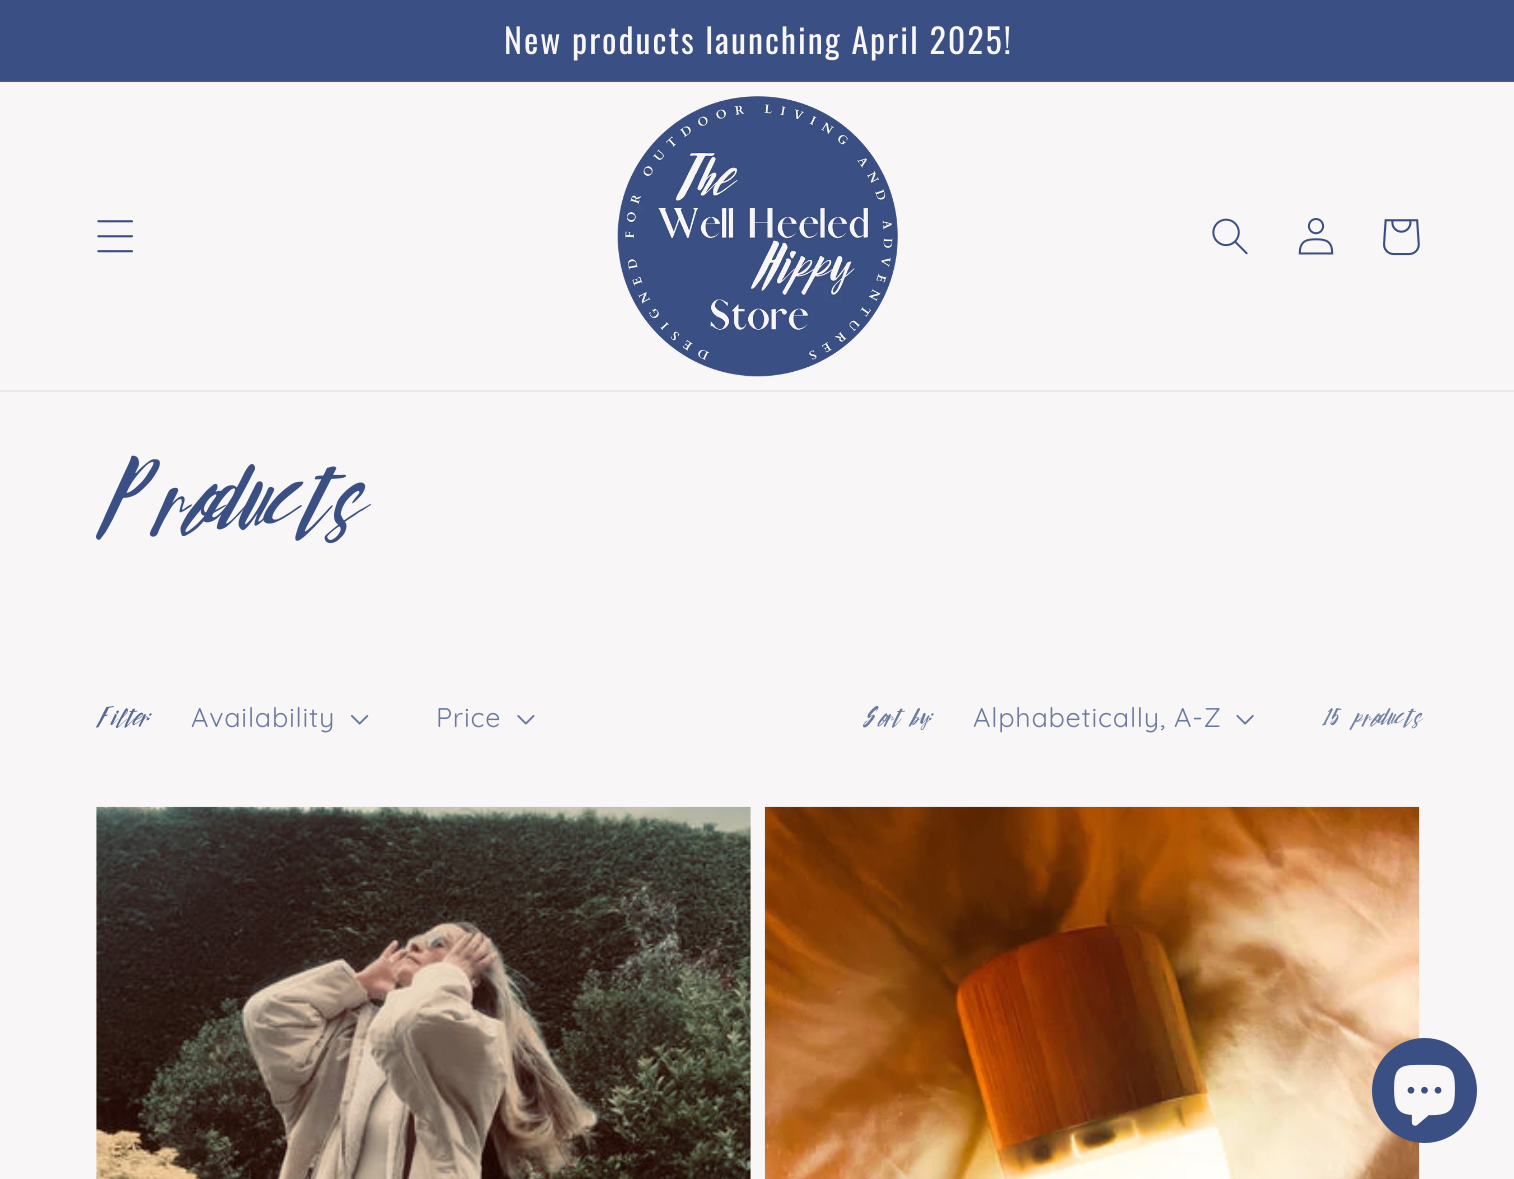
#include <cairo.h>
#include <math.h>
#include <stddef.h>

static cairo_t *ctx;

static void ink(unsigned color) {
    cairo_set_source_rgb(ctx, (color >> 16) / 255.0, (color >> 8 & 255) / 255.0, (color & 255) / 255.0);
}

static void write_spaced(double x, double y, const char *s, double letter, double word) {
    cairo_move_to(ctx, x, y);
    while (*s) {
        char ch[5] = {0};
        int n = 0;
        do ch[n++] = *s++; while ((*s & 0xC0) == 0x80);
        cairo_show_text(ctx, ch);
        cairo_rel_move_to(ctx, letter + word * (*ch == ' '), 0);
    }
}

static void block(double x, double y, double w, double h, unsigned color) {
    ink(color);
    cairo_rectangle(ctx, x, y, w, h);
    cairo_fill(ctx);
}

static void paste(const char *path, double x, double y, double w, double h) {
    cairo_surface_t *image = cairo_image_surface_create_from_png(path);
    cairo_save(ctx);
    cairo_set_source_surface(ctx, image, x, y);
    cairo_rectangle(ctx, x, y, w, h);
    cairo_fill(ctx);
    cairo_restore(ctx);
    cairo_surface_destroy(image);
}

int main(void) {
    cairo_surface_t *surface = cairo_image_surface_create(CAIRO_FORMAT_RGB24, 1514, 1179);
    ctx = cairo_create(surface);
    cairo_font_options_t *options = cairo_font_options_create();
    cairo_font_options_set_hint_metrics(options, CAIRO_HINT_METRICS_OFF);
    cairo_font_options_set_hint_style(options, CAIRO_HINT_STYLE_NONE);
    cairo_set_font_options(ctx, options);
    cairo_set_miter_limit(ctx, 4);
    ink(0xf8f6f6);
    cairo_paint(ctx);
    block(0, 0, 1514, 81, 0x3a4f83);
    block(0, 81, 1514, 1, 0x495c8c);
    cairo_select_font_face(ctx, "Oswald", CAIRO_FONT_SLANT_NORMAL, CAIRO_FONT_WEIGHT_NORMAL);
    cairo_set_font_size(ctx, 34.1);
    ink(0xf8f6f6);
    write_spaced(504, 54, "New products launching April 2025!", 1.95, 0);
    block(0, 390, 1514, 2, 0xe9e9ed);
    paste("pic1.png", 97, 220, 36, 33);
    paste("pic2.png", 617, 96, 281, 281);
    paste("pic3.png", 1212, 218, 36, 37);
    paste("pic4.png", 1298, 218, 36, 37);
    paste("pic5.png", 1383, 219, 37, 37);
    cairo_select_font_face(ctx, "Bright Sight", CAIRO_FONT_SLANT_NORMAL, CAIRO_FONT_WEIGHT_NORMAL);
    cairo_set_font_size(ctx, 105);
    ink(0x3a4f83);
    write_spaced(96, 530, "Products", 1.5, 0);
    cairo_set_font_size(ctx, 27);
    ink(0x576894);
    write_spaced(96, 725, "Filter:", 0.75, 0);
    cairo_select_font_face(ctx, "Quicksand", CAIRO_FONT_SLANT_NORMAL, CAIRO_FONT_WEIGHT_NORMAL);
    ink(0x6a79a0);
    write_spaced(191, 727, "Availability", 0.75, 0);
    paste("pic6.png", 351, 715, 18, 10);
    write_spaced(436, 727, "Price", 0.75, 0);
    paste("pic7.png", 517, 715, 18, 10);
    cairo_select_font_face(ctx, "Bright Sight", CAIRO_FONT_SLANT_NORMAL, CAIRO_FONT_WEIGHT_NORMAL);
    write_spaced(863, 725, "Sort by:", 0.75, 0);
    cairo_select_font_face(ctx, "Quicksand", CAIRO_FONT_SLANT_NORMAL, CAIRO_FONT_WEIGHT_NORMAL);
    write_spaced(973, 727, "Alphabetically, A-Z", 0.75, 0);
    paste("pic8.png", 1236, 715, 18, 10);
    cairo_select_font_face(ctx, "Bright Sight", CAIRO_FONT_SLANT_NORMAL, CAIRO_FONT_WEIGHT_NORMAL);
    ink(0x7381a6);
    write_spaced(1322, 725, "15 products", 1.25, 0);
    paste("pic9.png", 96, 806, 655, 373);
    paste("pic10.png", 764, 806, 656, 373);
    ink(0x3a4f83);
    cairo_arc(ctx, 1424.5, 1090.5, 52.5, 0, 2 * M_PI);
    cairo_fill(ctx);
    paste("pic11.png", 1394, 1064, 61, 62);
    cairo_surface_write_to_png(surface, "screenshot.png");
    cairo_font_options_destroy(options);
    cairo_destroy(ctx);
    cairo_surface_destroy(surface);
    return 0;
}
